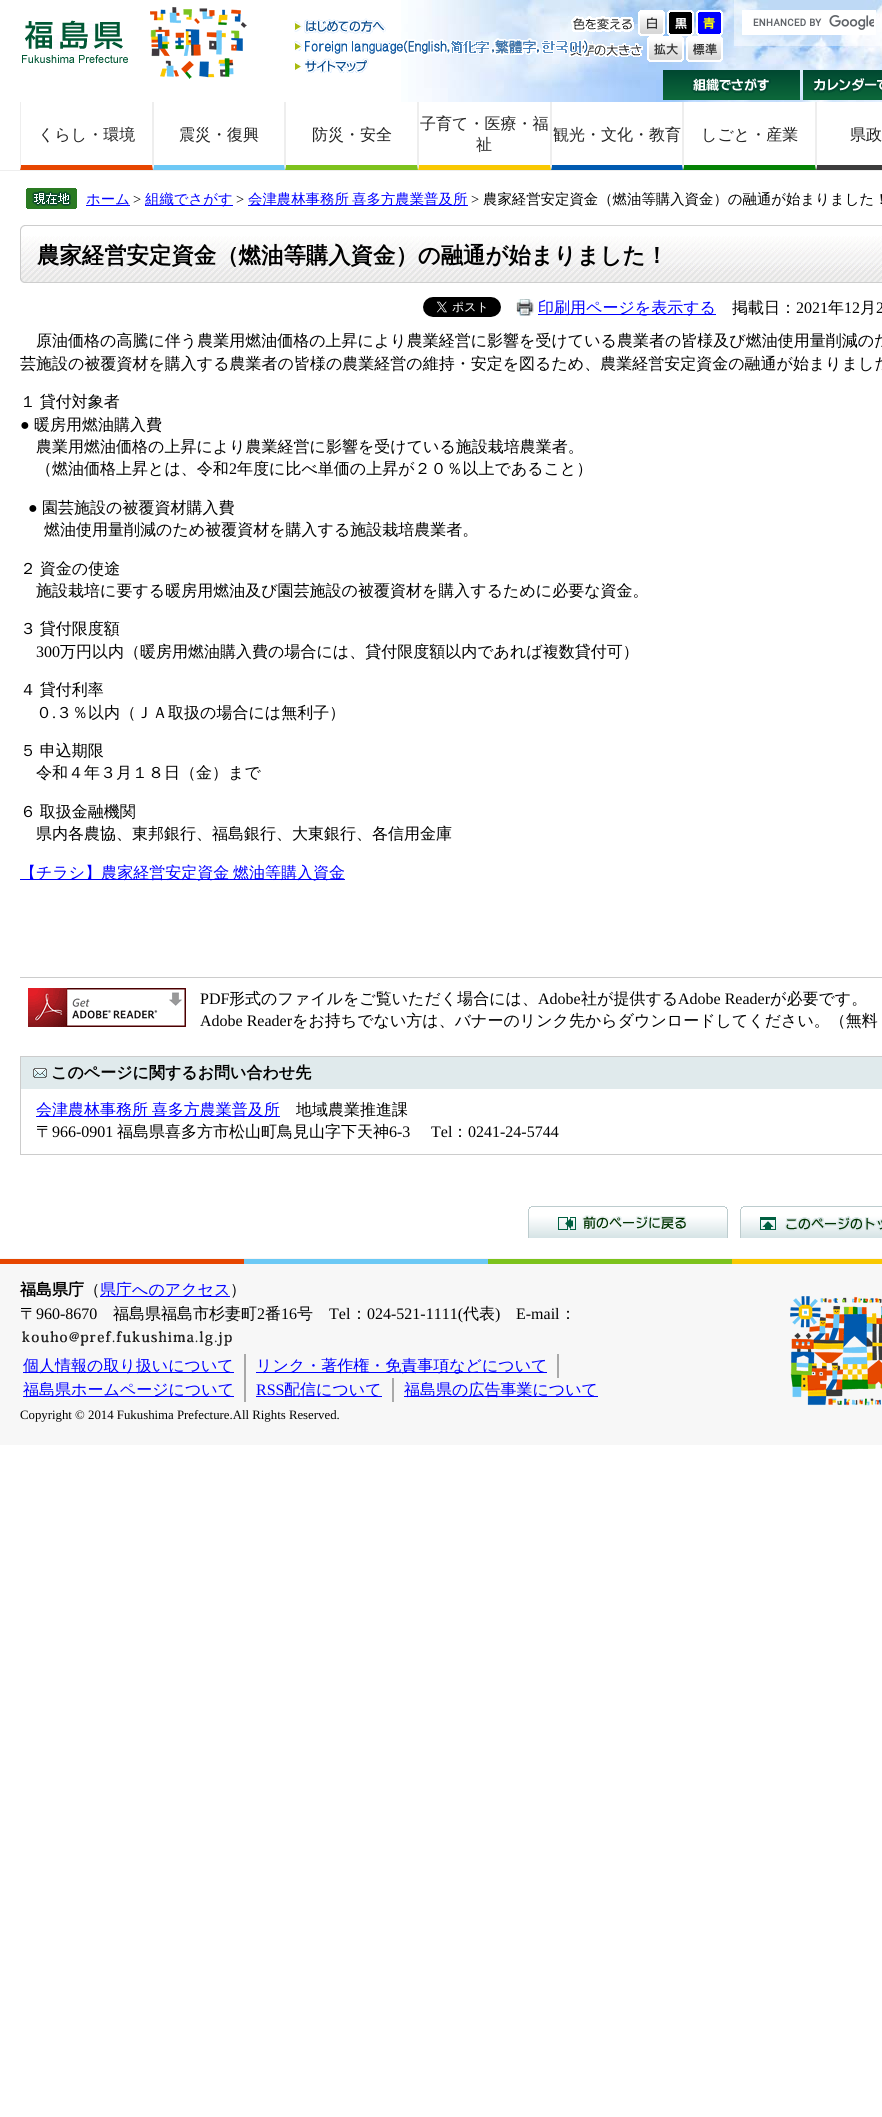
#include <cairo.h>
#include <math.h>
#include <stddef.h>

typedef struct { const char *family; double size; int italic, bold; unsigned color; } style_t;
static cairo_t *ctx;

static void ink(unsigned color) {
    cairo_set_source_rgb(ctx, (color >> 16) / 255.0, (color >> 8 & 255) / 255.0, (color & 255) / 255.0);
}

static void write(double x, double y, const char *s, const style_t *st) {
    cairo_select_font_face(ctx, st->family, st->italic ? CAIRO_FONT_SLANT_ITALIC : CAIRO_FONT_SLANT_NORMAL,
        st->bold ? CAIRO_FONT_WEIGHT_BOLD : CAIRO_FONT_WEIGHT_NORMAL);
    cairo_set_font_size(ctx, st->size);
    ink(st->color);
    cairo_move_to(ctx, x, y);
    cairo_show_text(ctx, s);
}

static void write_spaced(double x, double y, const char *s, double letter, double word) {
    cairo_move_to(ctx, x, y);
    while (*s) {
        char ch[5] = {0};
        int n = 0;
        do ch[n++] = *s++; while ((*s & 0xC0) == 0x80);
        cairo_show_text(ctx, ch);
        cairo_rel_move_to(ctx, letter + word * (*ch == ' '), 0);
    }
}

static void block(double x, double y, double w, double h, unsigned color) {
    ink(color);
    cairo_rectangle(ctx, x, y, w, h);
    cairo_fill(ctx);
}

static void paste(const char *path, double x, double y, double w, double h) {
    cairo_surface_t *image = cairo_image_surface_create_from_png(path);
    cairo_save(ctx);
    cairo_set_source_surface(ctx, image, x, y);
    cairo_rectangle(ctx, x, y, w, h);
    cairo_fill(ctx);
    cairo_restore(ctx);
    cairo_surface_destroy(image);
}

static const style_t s1 = {"WenQuanYi Zen Hei Medium", 16, 0, 0, 0x222222};
static const style_t s2 = {"WenQuanYi Zen Hei Medium", 14.4, 0, 0, 0x0000ff};
static const style_t s3 = {"Liberation Serif", 14.4, 0, 0, 0x000000};
static const style_t s4 = {"WenQuanYi Zen Hei Medium", 14.4, 0, 0, 0x000000};
static const style_t s5 = {"WenQuanYi Zen Hei", 22.4, 0, 1, 0x000000};
static const style_t s6 = {"WenQuanYi Zen Hei Medium", 16, 0, 0, 0x0000ff};
static const style_t s7 = {"WenQuanYi Zen Hei Medium", 16, 0, 0, 0x000000};
static const style_t s8 = {"Liberation Serif", 16, 0, 0, 0x000000};
static const style_t s9 = {"WenQuanYi Zen Hei", 16, 0, 1, 0x000000};
static const style_t s10 = {"Liberation Serif", 16, 0, 0, 0x0000ff};
static const style_t s11 = {"Liberation Serif", 12.8, 0, 0, 0x000000};

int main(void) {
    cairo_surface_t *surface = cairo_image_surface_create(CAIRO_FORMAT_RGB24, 882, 2117);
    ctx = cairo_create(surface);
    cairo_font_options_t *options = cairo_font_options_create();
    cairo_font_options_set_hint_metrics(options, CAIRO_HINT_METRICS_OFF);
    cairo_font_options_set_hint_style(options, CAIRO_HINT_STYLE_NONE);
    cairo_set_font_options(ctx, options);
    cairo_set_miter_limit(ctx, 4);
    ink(0xffffff);
    cairo_paint(ctx);
    paste("pic1.png", 401, 0, 481, 102);
    paste("pic2.png", 150, 7, 97, 72);
    paste("pic3.png", 22, 20, 106, 43);
    paste("pic4.png", 294, 18, 92, 16);
    paste("pic5.png", 294, 18, 91, 15);
    paste("pic14.png", 569, 43, 74, 14);
    paste("pic6.png", 294, 38, 299, 18);
    paste("pic7.png", 295, 38, 298, 18);
    paste("pic8.png", 294, 58, 75, 16);
    paste("pic9.png", 295, 60, 72, 13);
    paste("pic10.png", 571, 16, 63, 16);
    paste("pic11.png", 638, 10, 27, 26);
    paste("pic12.png", 667, 10, 27, 26);
    paste("pic13.png", 696, 10, 27, 26);
    paste("pic15.png", 647, 36, 37, 26);
    paste("pic16.png", 686, 36, 37, 26);
    cairo_set_source_rgba(ctx, 1, 1, 1, 0.5);
    cairo_rectangle(ctx, 734, 0, 148, 46);
    cairo_fill(ctx);
    block(744, 12, 130, 21, 0xffffff);
    paste("pic17.png", 753, 15, 121, 15);
    cairo_rectangle(ctx, 743, 11, 132, 23);
    cairo_stroke(ctx);
    paste("pic18.png", 663, 70, 137, 30);
    paste("pic19.png", 803, 70, 79, 30);
    block(0, 170, 882, 1, 0xeeeeee);
    cairo_new_path(ctx);
    cairo_move_to(ctx, 153, 102);
    cairo_line_to(ctx, 153, 170);
    cairo_line_to(ctx, 152, 165);
    cairo_line_to(ctx, 152, 102);
    cairo_close_path(ctx);
    cairo_fill(ctx);
    ink(0xe74600);
    cairo_new_path(ctx);
    cairo_move_to(ctx, 153, 170);
    cairo_line_to(ctx, 20, 170);
    cairo_line_to(ctx, 21, 165);
    cairo_line_to(ctx, 152, 165);
    cairo_close_path(ctx);
    cairo_fill(ctx);
    ink(0xeeeeee);
    cairo_new_path(ctx);
    cairo_move_to(ctx, 20, 170);
    cairo_line_to(ctx, 20, 102);
    cairo_line_to(ctx, 21, 102);
    cairo_line_to(ctx, 21, 165);
    cairo_close_path(ctx);
    cairo_fill(ctx);
    write(38, 140, "くらし・環境", &s1);
    ink(0xeeeeee);
    cairo_new_path(ctx);
    cairo_move_to(ctx, 285, 102);
    cairo_line_to(ctx, 285, 170);
    cairo_line_to(ctx, 284, 165);
    cairo_line_to(ctx, 284, 102);
    cairo_close_path(ctx);
    cairo_fill(ctx);
    ink(0x6dc8f5);
    cairo_new_path(ctx);
    cairo_move_to(ctx, 285, 170);
    cairo_line_to(ctx, 153, 170);
    cairo_line_to(ctx, 154, 165);
    cairo_line_to(ctx, 284, 165);
    cairo_close_path(ctx);
    cairo_fill(ctx);
    ink(0xeeeeee);
    cairo_new_path(ctx);
    cairo_move_to(ctx, 153, 170);
    cairo_line_to(ctx, 153, 102);
    cairo_line_to(ctx, 154, 102);
    cairo_line_to(ctx, 154, 165);
    cairo_close_path(ctx);
    cairo_fill(ctx);
    write(179, 140, "震災・復興", &s1);
    ink(0xeeeeee);
    cairo_new_path(ctx);
    cairo_move_to(ctx, 418, 102);
    cairo_line_to(ctx, 418, 170);
    cairo_line_to(ctx, 417, 165);
    cairo_line_to(ctx, 417, 102);
    cairo_close_path(ctx);
    cairo_fill(ctx);
    ink(0x7ec21d);
    cairo_new_path(ctx);
    cairo_move_to(ctx, 418, 170);
    cairo_line_to(ctx, 285, 170);
    cairo_line_to(ctx, 286, 165);
    cairo_line_to(ctx, 417, 165);
    cairo_close_path(ctx);
    cairo_fill(ctx);
    ink(0xeeeeee);
    cairo_new_path(ctx);
    cairo_move_to(ctx, 285, 170);
    cairo_line_to(ctx, 285, 102);
    cairo_line_to(ctx, 286, 102);
    cairo_line_to(ctx, 286, 165);
    cairo_close_path(ctx);
    cairo_fill(ctx);
    write(312, 140, "防災・安全", &s1);
    ink(0xeeeeee);
    cairo_new_path(ctx);
    cairo_move_to(ctx, 551, 102);
    cairo_line_to(ctx, 551, 170);
    cairo_line_to(ctx, 550, 165);
    cairo_line_to(ctx, 550, 102);
    cairo_close_path(ctx);
    cairo_fill(ctx);
    ink(0xf9c801);
    cairo_new_path(ctx);
    cairo_move_to(ctx, 551, 170);
    cairo_line_to(ctx, 418, 170);
    cairo_line_to(ctx, 419, 165);
    cairo_line_to(ctx, 550, 165);
    cairo_close_path(ctx);
    cairo_fill(ctx);
    ink(0xeeeeee);
    cairo_new_path(ctx);
    cairo_move_to(ctx, 418, 170);
    cairo_line_to(ctx, 418, 102);
    cairo_line_to(ctx, 419, 102);
    cairo_line_to(ctx, 419, 165);
    cairo_close_path(ctx);
    cairo_fill(ctx);
    write(420, 129, "子育て・医療・福", &s1);
    write(476, 150, "祉", &s1);
    ink(0xeeeeee);
    cairo_new_path(ctx);
    cairo_move_to(ctx, 683, 102);
    cairo_line_to(ctx, 683, 170);
    cairo_line_to(ctx, 682, 165);
    cairo_line_to(ctx, 682, 102);
    cairo_close_path(ctx);
    cairo_fill(ctx);
    ink(0x005ab0);
    cairo_new_path(ctx);
    cairo_move_to(ctx, 683, 170);
    cairo_line_to(ctx, 551, 170);
    cairo_line_to(ctx, 552, 165);
    cairo_line_to(ctx, 682, 165);
    cairo_close_path(ctx);
    cairo_fill(ctx);
    ink(0xeeeeee);
    cairo_new_path(ctx);
    cairo_move_to(ctx, 551, 170);
    cairo_line_to(ctx, 551, 102);
    cairo_line_to(ctx, 552, 102);
    cairo_line_to(ctx, 552, 165);
    cairo_close_path(ctx);
    cairo_fill(ctx);
    write(553, 140, "観光・文化・教育", &s1);
    ink(0xeeeeee);
    cairo_new_path(ctx);
    cairo_move_to(ctx, 816, 102);
    cairo_line_to(ctx, 816, 170);
    cairo_line_to(ctx, 815, 165);
    cairo_line_to(ctx, 815, 102);
    cairo_close_path(ctx);
    cairo_fill(ctx);
    ink(0x048204);
    cairo_new_path(ctx);
    cairo_move_to(ctx, 816, 170);
    cairo_line_to(ctx, 683, 170);
    cairo_line_to(ctx, 684, 165);
    cairo_line_to(ctx, 815, 165);
    cairo_close_path(ctx);
    cairo_fill(ctx);
    ink(0xeeeeee);
    cairo_new_path(ctx);
    cairo_move_to(ctx, 683, 170);
    cairo_line_to(ctx, 683, 102);
    cairo_line_to(ctx, 684, 102);
    cairo_line_to(ctx, 684, 165);
    cairo_close_path(ctx);
    cairo_fill(ctx);
    write(701, 140, "しごと・産業", &s1);
    ink(0x3c3c3c);
    cairo_new_path(ctx);
    cairo_move_to(ctx, 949, 170);
    cairo_line_to(ctx, 816, 170);
    cairo_line_to(ctx, 817, 165);
    cairo_line_to(ctx, 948, 165);
    cairo_close_path(ctx);
    cairo_fill(ctx);
    ink(0xeeeeee);
    cairo_new_path(ctx);
    cairo_move_to(ctx, 816, 170);
    cairo_line_to(ctx, 816, 102);
    cairo_line_to(ctx, 817, 102);
    cairo_line_to(ctx, 817, 165);
    cairo_close_path(ctx);
    cairo_fill(ctx);
    write(850, 140, "県政", &s1);
    paste("pic20.png", 26, 188, 51, 21);
    block(86, 205, 44, 1, 0x0000ff);
    write(86, 204, "ホーム", &s2);
    write(133, 204, ">", &s3);
    block(145, 205, 88, 1, 0x0000ff);
    write(145, 204, "組織でさがす", &s2);
    write(236, 204, ">", &s3);
    block(248, 205, 220, 1, 0x0000ff);
    cairo_select_font_face(ctx, "WenQuanYi Zen Hei Medium", CAIRO_FONT_SLANT_NORMAL, CAIRO_FONT_WEIGHT_NORMAL);
    write_spaced(248, 204, "会津農林事務所 喜多方農業普及所", 0, -1);
    write(471, 204, ">", &s3);
    write(483, 204, "農家経営安定資金（燃油等購入資金）の融通が始まりました！", &s4);
    paste("pic21.png", 20, 226, 862, 57);
    block(21, 225, 861, 1, 0xcdcdcd);
    paste("pic22.png", 20, 225, 5, 5);
    write(37, 263, "農家経営安定資金（燃油等購入資金）の融通が始まりました！", &s5);
    paste("pic23.png", 423, 297, 78, 20);
    paste("pic24.png", 516, 299, 18, 17);
    block(538, 314, 178, 1, 0x0000ff);
    write(538, 313, "印刷用ページを表示する", &s6);
    write(732, 313, "掲載日：", &s7);
    write(796, 313, "2021", &s8);
    write(828, 313, "年", &s7);
    write(844, 313, "12", &s8);
    write(860, 313, "月", &s7);
    write(876, 313, "2", &s8);
    write(36, 346, "原油価格の高騰に伴う農業用燃油価格の上昇により農業経営に影響を受けている農業者の皆様及び燃油使用量削減のた", &s7);
    write(20, 369, "芸施設の被覆資材を購入する農業者の皆様の農業経営の維持・安定を図るため、農業経営安定資金の融通が始まりました", &s7);
    write_spaced(20, 407, "１ 貸付対象者", 0, -1);
    write(20, 430, "●", &s8);
    write(34, 430, "暖房用燃油購入費", &s7);
    write(36, 452, "農業用燃油価格の上昇により農業経営に影響を受けている施設栽培農業者。", &s7);
    write(36, 474, "（燃油価格上昇とは、令和", &s7);
    write(229, 474, "2", &s8);
    write(237, 474, "年度に比べ単価の上昇が２０％以上であること）", &s7);
    write(28, 513, "●", &s8);
    write(42, 513, "園芸施設の被覆資材購入費", &s7);
    write(44, 535, "燃油使用量削減のため被覆資材を購入する施設栽培農業者。", &s7);
    write_spaced(20, 574, "２ 資金の使途", 0, -1);
    write(36, 596, "施設栽培に要する暖房用燃油及び園芸施設の被覆資材を購入するために必要な資金。", &s7);
    write_spaced(20, 634, "３ 貸付限度額", 0, -1);
    write(36, 657, "300", &s8);
    write(60, 657, "万円以内（暖房用燃油購入費の場合には、貸付限度額以内であれば複数貸付可）", &s7);
    write_spaced(20, 695, "４ 貸付利率", 0, -1);
    write(36, 718, "０", &s7);
    write(52, 718, ".", &s8);
    write(56, 718, "３％以内（ＪＡ取扱の場合には無利子）", &s7);
    write_spaced(20, 756, "５ 申込期限", 0, -1);
    write(36, 778, "令和４年３月１８日（金）まで", &s7);
    write_spaced(20, 817, "６ 取扱金融機関", 0, -1);
    write(36, 839, "県内各農協、東邦銀行、福島銀行、大東銀行、各信用金庫", &s7);
    block(20, 879, 325, 1, 0x0000ff);
    write_spaced(20, 878, "【チラシ】農家経営安定資金 燃油等購入資金", 0, -1);
    block(20, 977, 862, 1, 0xcccccc);
    paste("pic25.png", 28, 988, 158, 39);
    write(200, 1004, "PDF", &s8);
    write(229, 1004, "形式のファイルをご覧いただく場合には、", &s7);
    write(538, 1004, "Adobe", &s8);
    write(581, 1004, "社が提供する", &s7);
    write(678, 1004, "Adobe Reader", &s8);
    write(770, 1004, "が必要です。", &s7);
    write(200, 1026, "Adobe Reader", &s8);
    write(292, 1026, "をお持ちでない方は、バナーのリンク先からダウンロードしてください。（無料", &s7);
    cairo_rectangle(ctx, 20.5, 1056.5, 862, 98);
    ink(0xcccccc);
    cairo_set_line_width(ctx, 1);
    cairo_stroke(ctx);
    block(21, 1057, 861, 32, 0xe0eaec);
    paste("pic26.png", 33, 1068, 14, 10);
    write(51, 1078, "このページに関するお問い合わせ先", &s9);
    block(36, 1116, 244, 1, 0x0000ff);
    cairo_select_font_face(ctx, "WenQuanYi Zen Hei Medium", CAIRO_FONT_SLANT_NORMAL, CAIRO_FONT_WEIGHT_NORMAL);
    write_spaced(36, 1115, "会津農林事務所 喜多方農業普及所", 0, -1);
    write(296, 1115, "地域農業推進課", &s7);
    write(36, 1137, "〒", &s7);
    write(52, 1137, "966-0901", &s8);
    write(117, 1137, "福島県喜多方市松山町鳥見山字下天神", &s7);
    write(389, 1137, "6-3", &s8);
    write(431, 1137, "Tel", &s8);
    write(452, 1137, "：", &s7);
    write(468, 1137, "0241-24-5744", &s8);
    paste("pic27.png", 528, 1206, 200, 32);
    paste("pic28.png", 582, 1214, 105, 16);
    paste("pic29.png", 740, 1206, 142, 32);
    paste("pic30.png", 785, 1215, 97, 16);
    block(0, 1258, 882, 187, 0xf7f7f7);
    paste("pic31.png", 0, 1259, 882, 5);
    paste("pic32.png", 790, 1296, 92, 110);
    write(20, 1295, "福島県庁", &s9);
    write(84, 1295, "（", &s7);
    block(100, 1296, 130, 1, 0x0000ff);
    write(100, 1295, "県庁へのアクセス", &s6);
    write(230, 1295, "）", &s7);
    write(20, 1319, "〒", &s7);
    write(36, 1319, "960-8670", &s8);
    write(113, 1319, "福島県福島市杉妻町", &s7);
    write(257, 1319, "2", &s8);
    write(265, 1319, "番", &s7);
    write(281, 1319, "16", &s8);
    write(297, 1319, "号", &s7);
    write(329, 1319, "Tel", &s8);
    write(351, 1319, "：", &s7);
    write(367, 1319, "024-521-1111(", &s8);
    write(463, 1319, "代表", &s7);
    write(495, 1319, ")", &s8);
    write(516, 1319, "E-mail", &s8);
    write(560, 1319, "：", &s7);
    paste("pic33.png", 22, 1331, 210, 15);
    block(244, 1354, 2, 48, 0xa9a9a9);
    block(23, 1372, 211, 1, 0x0000ff);
    write(23, 1371, "個人情報の取り扱いについて", &s6);
    block(557, 1354, 2, 24, 0xa9a9a9);
    block(256, 1372, 291, 1, 0x0000ff);
    write(256, 1371, "リンク・著作権・免責事項などについて", &s6);
    block(23, 1396, 211, 1, 0x0000ff);
    write(23, 1395, "福島県ホームページについて", &s6);
    block(392, 1378, 2, 24, 0xa9a9a9);
    write(256, 1395, "RSS", &s10);
    block(256, 1396, 126, 1, 0x0000ff);
    write(284, 1395, "配信について", &s6);
    block(404, 1396, 194, 1, 0x0000ff);
    write(404, 1395, "福島県の広告事業について", &s6);
    write(20, 1419, "Copyright © 2014 Fukushima Prefecture.All Rights Reserved.", &s11);
    cairo_surface_write_to_png(surface, "screenshot.png");
    cairo_font_options_destroy(options);
    cairo_destroy(ctx);
    cairo_surface_destroy(surface);
    return 0;
}
